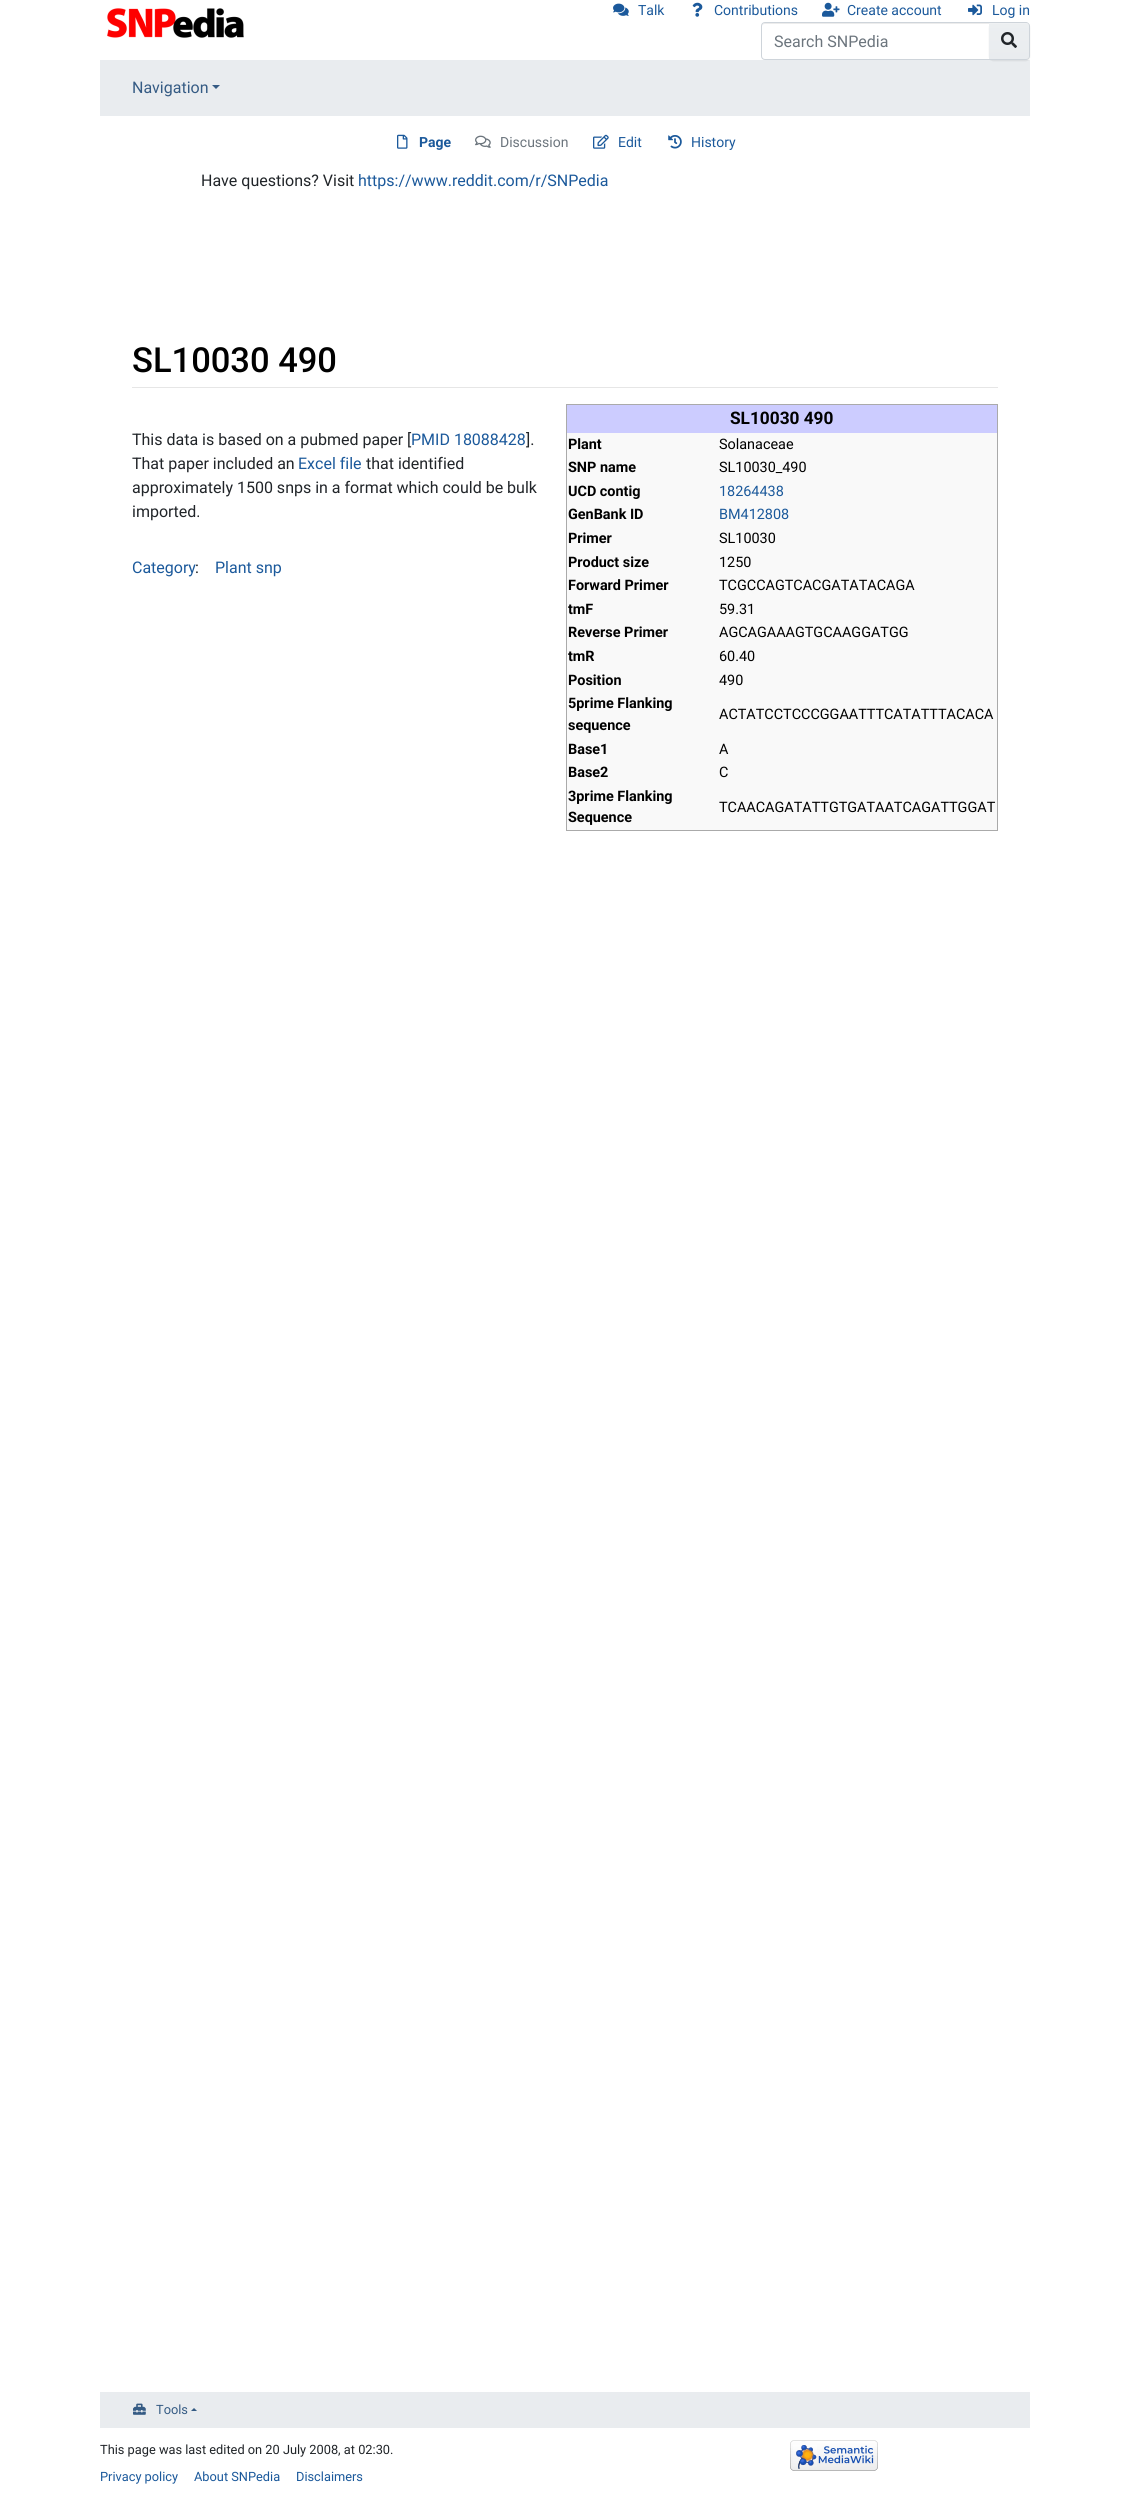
#include <cairo.h>
#include <math.h>
#include <stddef.h>

typedef struct { const char *family; double size; int italic, bold; unsigned color; } style_t;
static cairo_t *ctx;

static void ink(unsigned color) {
    cairo_set_source_rgb(ctx, (color >> 16) / 255.0, (color >> 8 & 255) / 255.0, (color & 255) / 255.0);
}

static void write(double x, double y, const char *s, const style_t *st) {
    cairo_select_font_face(ctx, st->family, st->italic ? CAIRO_FONT_SLANT_ITALIC : CAIRO_FONT_SLANT_NORMAL,
        st->bold ? CAIRO_FONT_WEIGHT_BOLD : CAIRO_FONT_WEIGHT_NORMAL);
    cairo_set_font_size(ctx, st->size);
    ink(st->color);
    cairo_move_to(ctx, x, y);
    cairo_show_text(ctx, s);
}

static void block(double x, double y, double w, double h, unsigned color) {
    ink(color);
    cairo_rectangle(ctx, x, y, w, h);
    cairo_fill(ctx);
}

static void round_path(double x, double y, double w, double h, double r) {
    cairo_new_sub_path(ctx);
    cairo_arc(ctx, x + w - r, y + h - r, r, 0, M_PI / 2);
    cairo_arc(ctx, x + r, y + h - r, r, M_PI / 2, M_PI);
    cairo_arc(ctx, x + r, y + r, r, M_PI, 1.5 * M_PI);
    cairo_arc(ctx, x + w - r, y + r, r, 1.5 * M_PI, 2 * M_PI);
    cairo_close_path(ctx);
}

static void blur_box(double x, double y, double w, double h, double r, double blur, double alpha) {
    cairo_push_group_with_content(ctx, CAIRO_CONTENT_ALPHA);
    cairo_set_operator(ctx, CAIRO_OPERATOR_SOURCE);
    for (int i = 15; i >= -15 && fmin(w, h) + blur * i / 3 > 0; i -= 2) {
        double e = blur * i / 6;
        cairo_set_source_rgba(ctx, 0, 0, 0, alpha * erfc((i - 1) / 8.5) / 2);
        round_path(x - e, y - e, w + 2 * e, h + 2 * e, fmax(0, fmin(r + e + blur * .6, fmin(w, h) / 2 + e)));
        cairo_fill(ctx);
    }
    cairo_pattern_t *soft = cairo_pop_group(ctx);
    cairo_mask(ctx, soft);
    cairo_pattern_destroy(soft);
}

static void paste(const char *path, double x, double y, double w, double h) {
    cairo_surface_t *image = cairo_image_surface_create_from_png(path);
    cairo_save(ctx);
    cairo_set_source_surface(ctx, image, x, y);
    cairo_rectangle(ctx, x, y, w, h);
    cairo_fill(ctx);
    cairo_restore(ctx);
    cairo_surface_destroy(image);
}

static const style_t s1 = {"Roboto", 14, 0, 0, 0x1b599b};
static const style_t s2 = {"Roboto", 16, 0, 0, 0x6c757d};
static const style_t s3 = {"Roboto", 16, 0, 0, 0x355b84};
static const style_t s4 = {"Roboto", 14, 0, 1, 0x1b599b};
static const style_t s5 = {"Roboto", 14, 0, 0, 0x6c757d};
static const style_t s6 = {"Roboto", 16, 0, 0, 0x212529};
static const style_t s7 = {"Roboto", 16, 0, 0, 0x1b599b};
static const style_t s8 = {"Roboto Medium", 34.5, 0, 0, 0x000000};
static const style_t s9 = {"Roboto", 17.25, 0, 1, 0x000000};
static const style_t s10 = {"Roboto", 14.4, 0, 1, 0x000000};
static const style_t s11 = {"Roboto", 14.4, 0, 0, 0x000000};
static const style_t s12 = {"Roboto", 14.4, 0, 0, 0x1b599b};
static const style_t s13 = {"Roboto", 12.8, 0, 0, 0x355b84};
static const style_t s14 = {"Roboto", 12.8, 0, 0, 0x212529};
static const style_t s15 = {"Roboto", 12.8, 0, 0, 0x1b599b};

int main(void) {
    cairo_surface_t *surface = cairo_image_surface_create(CAIRO_FORMAT_RGB24, 1129, 2498);
    ctx = cairo_create(surface);
    cairo_font_options_t *options = cairo_font_options_create();
    cairo_font_options_set_hint_metrics(options, CAIRO_HINT_METRICS_OFF);
    cairo_font_options_set_hint_style(options, CAIRO_HINT_STYLE_NONE);
    cairo_set_font_options(ctx, options);
    cairo_set_miter_limit(ctx, 4);
    cairo_pattern_t *gradient;
    ink(0xffffff);
    cairo_paint(ctx);
    paste("pic1.png", 107, 8, 137, 30);
    paste("pic2.png", 613, 3, 16, 13);
    write(638, 15, "Talk", &s1);
    paste("pic3.png", 692, 2, 11, 15);
    write(714, 15, "Contributions", &s1);
    paste("pic4.png", 822, 2, 18, 15);
    write(847, 15, "Create account", &s1);
    paste("pic5.png", 968, 4, 14, 12);
    write(992, 15, "Log in", &s1);
    ink(0xececec);
    cairo_new_path(ctx);
    cairo_move_to(ctx, 765, 24);
    cairo_line_to(ctx, 989, 24);
    cairo_line_to(ctx, 989, 23);
    cairo_line_to(ctx, 765, 23);
    cairo_curve_to(ctx, 763, 23, 762, 25, 762, 27);
    cairo_curve_to(ctx, 762, 25, 763, 24, 765, 24);
    cairo_close_path(ctx);
    cairo_fill(ctx);
    cairo_new_path(ctx);
    cairo_move_to(ctx, 765, 22.5);
    cairo_line_to(ctx, 989.5, 22.5);
    cairo_line_to(ctx, 989.5, 59.5);
    cairo_line_to(ctx, 765, 59.5);
    cairo_curve_to(ctx, 763, 59.5, 761.5, 58, 761.5, 56);
    cairo_line_to(ctx, 761.5, 26);
    cairo_curve_to(ctx, 761.5, 24, 763, 22.5, 765, 22.5);
    cairo_close_path(ctx);
    ink(0xced4da);
    cairo_set_line_width(ctx, 1);
    cairo_stroke(ctx);
    write(774, 47, "Search SNPedia", &s2);
    block(100, 60, 930, 56, 0xe9ecef);
    ink(0x000000);
    blur_box(989, 23, 41, 38, 4, 0.5, 0.07);
    gradient = cairo_pattern_create_linear(1009, 23, 1009, 59);
    cairo_pattern_add_color_stop_rgba(gradient, 0, 0.925, 0.937, 0.945, 1);
    cairo_pattern_add_color_stop_rgba(gradient, 1, 0.914, 0.925, 0.937, 1);
    cairo_set_source(ctx, gradient);
    cairo_pattern_destroy(gradient);
    cairo_new_path(ctx);
    cairo_move_to(ctx, 989, 23);
    cairo_line_to(ctx, 1026, 23);
    cairo_curve_to(ctx, 1027.5, 23, 1029, 24.5, 1029, 26);
    cairo_line_to(ctx, 1029, 56);
    cairo_curve_to(ctx, 1029, 57.5, 1027.5, 59, 1026, 59);
    cairo_line_to(ctx, 989, 59);
    cairo_close_path(ctx);
    cairo_fill(ctx);
    cairo_set_source_rgba(ctx, 1, 1, 1, 0.15);
    cairo_new_path(ctx);
    cairo_move_to(ctx, 989, 24);
    cairo_line_to(ctx, 1026, 24);
    cairo_curve_to(ctx, 1028, 24, 1029, 25, 1029, 27);
    cairo_line_to(ctx, 1029, 26);
    cairo_curve_to(ctx, 1029, 24, 1028, 23, 1026, 23);
    cairo_line_to(ctx, 989, 23);
    cairo_close_path(ctx);
    cairo_fill(ctx);
    ink(0xced4da);
    cairo_set_fill_rule(ctx, CAIRO_FILL_RULE_EVEN_ODD);
    cairo_new_path(ctx);
    cairo_move_to(ctx, 989, 22);
    cairo_line_to(ctx, 1026, 22);
    cairo_curve_to(ctx, 1028, 22, 1030, 24, 1030, 26);
    cairo_line_to(ctx, 1030, 56);
    cairo_curve_to(ctx, 1030, 58, 1028, 60, 1026, 60);
    cairo_line_to(ctx, 989, 60);
    cairo_close_path(ctx);
    cairo_move_to(ctx, 989, 23);
    cairo_line_to(ctx, 1026, 23);
    cairo_curve_to(ctx, 1028, 23, 1029, 24, 1029, 26);
    cairo_line_to(ctx, 1029, 56);
    cairo_curve_to(ctx, 1029, 58, 1028, 59, 1026, 59);
    cairo_line_to(ctx, 989, 59);
    cairo_close_path(ctx);
    cairo_fill(ctx);
    paste("pic6.png", 1001, 32, 16, 16);
    write(132, 93, "Navigation", &s3);
    cairo_set_fill_rule(ctx, CAIRO_FILL_RULE_WINDING);
    cairo_new_path(ctx);
    cairo_move_to(ctx, 212, 85);
    cairo_line_to(ctx, 220, 85);
    cairo_line_to(ctx, 216, 89);
    cairo_close_path(ctx);
    cairo_fill(ctx);
    paste("pic7.png", 397, 134, 11, 15);
    write(419, 147, "Page", &s4);
    paste("pic8.png", 475, 135, 16, 13);
    write(500, 147, "Discussion", &s5);
    paste("pic9.png", 593, 134, 16, 15);
    write(618, 147, "Edit", &s1);
    paste("pic10.png", 668, 135, 14, 14);
    write(691, 147, "History", &s1);
    write(201, 186, "Have questions? Visit", &s6);
    write(358, 186, "https://www.reddit.com/r/SNPedia", &s7);
    block(132, 387, 866, 1, 0xe6e6e6);
    write(132, 372, "SL10030 490", &s8);
    write(132, 445, "This data is based on a pubmed paper [", &s6);
    write(411, 445, "PMID 18088428", &s7);
    write(526, 445, "].", &s6);
    write(132, 469, "That paper included an", &s6);
    write(298, 469, "Excel file", &s7);
    write(366, 469, "that identified", &s6);
    write(132, 493, "approximately 1500 snps in a format which could be bulk", &s6);
    write(132, 517, "imported.", &s6);
    block(567, 433, 430, 397, 0xf9f9f9);
    block(566, 404, 432, 1, 0xaaaaaa);
    block(997, 404, 1, 427, 0xaaaaaa);
    block(566, 830, 432, 1, 0xaaaaaa);
    block(566, 404, 1, 427, 0xaaaaaa);
    block(567, 405, 430, 28, 0xccccff);
    write(730, 424, "SL10030 490", &s9);
    write(568, 449, "Plant", &s10);
    write(719, 449, "Solanaceae", &s11);
    write(568, 472, "SNP name", &s10);
    write(719, 472, "SL10030_490", &s11);
    write(568, 496, "UCD contig", &s10);
    write(719, 496, "18264438", &s12);
    write(568, 519, "GenBank ID", &s10);
    write(719, 519, "BM412808", &s12);
    write(568, 543, "Primer", &s10);
    write(719, 543, "SL10030", &s11);
    write(568, 567, "Product size", &s10);
    write(719, 567, "1250", &s11);
    write(568, 590, "Forward Primer", &s10);
    write(719, 590, "TCGCCAGTCACGATATACAGA", &s11);
    write(568, 614, "tmF", &s10);
    write(719, 614, "59.31", &s11);
    write(568, 637, "Reverse Primer", &s10);
    write(719, 637, "AGCAGAAAGTGCAAGGATGG", &s11);
    write(568, 661, "tmR", &s10);
    write(719, 661, "60.40", &s11);
    write(568, 685, "Position", &s10);
    write(719, 685, "490", &s11);
    write(568, 708, "5prime Flanking", &s10);
    write(568, 730, "sequence", &s10);
    write(719, 719, "ACTATCCTCCCGGAATTTCATATTTACACA", &s11);
    write(568, 754, "Base1", &s10);
    write(719, 754, "A", &s11);
    write(568, 777, "Base2", &s10);
    write(719, 777, "C", &s11);
    write(568, 801, "3prime Flanking", &s10);
    write(568, 822, "Sequence", &s10);
    write(719, 812, "TCAACAGATATTGTGATAATCAGATTGGAT", &s11);
    write(132, 573, "Category", &s7);
    write(195, 573, ":", &s6);
    write(215, 573, "Plant snp", &s7);
    block(100, 2392, 930, 36, 0xe9ecef);
    paste("pic11.png", 133, 2403, 13, 12);
    write(156, 2414, "Tools", &s13);
    cairo_new_path(ctx);
    cairo_move_to(ctx, 197, 2411);
    cairo_line_to(ctx, 191, 2411);
    cairo_line_to(ctx, 194, 2408);
    cairo_close_path(ctx);
    cairo_fill(ctx);
    write(100, 2454, "This page was last edited on 20 July 2008, at 02:30.", &s14);
    write(100, 2481, "Privacy policy", &s15);
    write(194, 2481, "About SNPedia", &s15);
    write(296, 2481, "Disclaimers", &s15);
    paste("pic12.png", 790, 2440, 88, 31);
    cairo_surface_write_to_png(surface, "screenshot.png");
    cairo_font_options_destroy(options);
    cairo_destroy(ctx);
    cairo_surface_destroy(surface);
    return 0;
}
